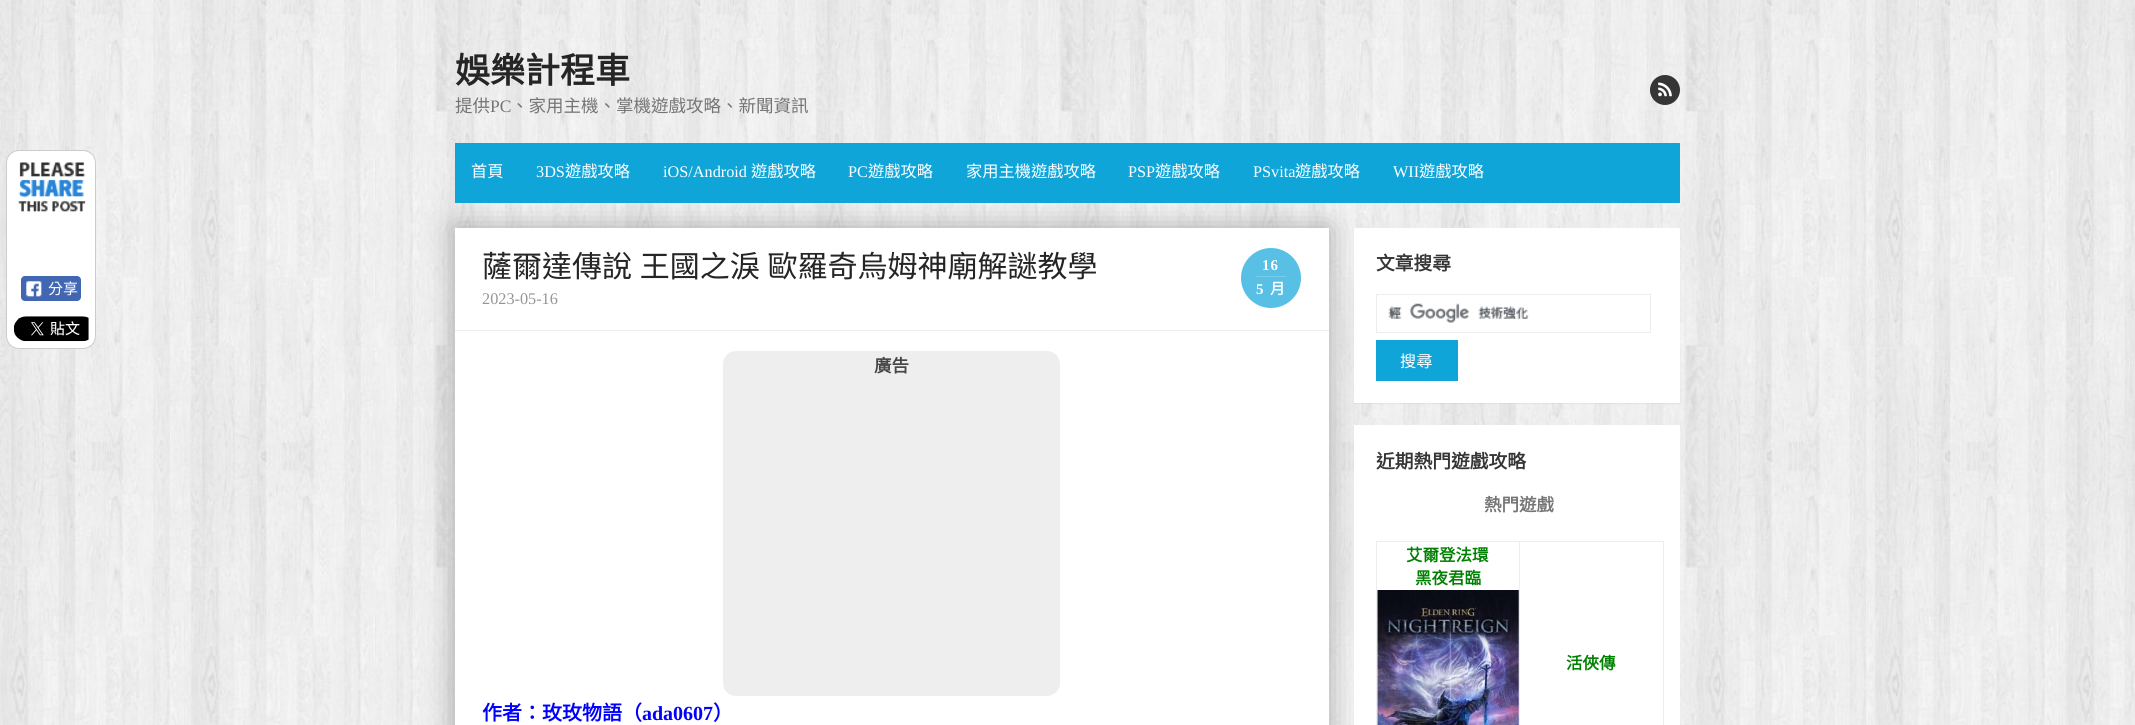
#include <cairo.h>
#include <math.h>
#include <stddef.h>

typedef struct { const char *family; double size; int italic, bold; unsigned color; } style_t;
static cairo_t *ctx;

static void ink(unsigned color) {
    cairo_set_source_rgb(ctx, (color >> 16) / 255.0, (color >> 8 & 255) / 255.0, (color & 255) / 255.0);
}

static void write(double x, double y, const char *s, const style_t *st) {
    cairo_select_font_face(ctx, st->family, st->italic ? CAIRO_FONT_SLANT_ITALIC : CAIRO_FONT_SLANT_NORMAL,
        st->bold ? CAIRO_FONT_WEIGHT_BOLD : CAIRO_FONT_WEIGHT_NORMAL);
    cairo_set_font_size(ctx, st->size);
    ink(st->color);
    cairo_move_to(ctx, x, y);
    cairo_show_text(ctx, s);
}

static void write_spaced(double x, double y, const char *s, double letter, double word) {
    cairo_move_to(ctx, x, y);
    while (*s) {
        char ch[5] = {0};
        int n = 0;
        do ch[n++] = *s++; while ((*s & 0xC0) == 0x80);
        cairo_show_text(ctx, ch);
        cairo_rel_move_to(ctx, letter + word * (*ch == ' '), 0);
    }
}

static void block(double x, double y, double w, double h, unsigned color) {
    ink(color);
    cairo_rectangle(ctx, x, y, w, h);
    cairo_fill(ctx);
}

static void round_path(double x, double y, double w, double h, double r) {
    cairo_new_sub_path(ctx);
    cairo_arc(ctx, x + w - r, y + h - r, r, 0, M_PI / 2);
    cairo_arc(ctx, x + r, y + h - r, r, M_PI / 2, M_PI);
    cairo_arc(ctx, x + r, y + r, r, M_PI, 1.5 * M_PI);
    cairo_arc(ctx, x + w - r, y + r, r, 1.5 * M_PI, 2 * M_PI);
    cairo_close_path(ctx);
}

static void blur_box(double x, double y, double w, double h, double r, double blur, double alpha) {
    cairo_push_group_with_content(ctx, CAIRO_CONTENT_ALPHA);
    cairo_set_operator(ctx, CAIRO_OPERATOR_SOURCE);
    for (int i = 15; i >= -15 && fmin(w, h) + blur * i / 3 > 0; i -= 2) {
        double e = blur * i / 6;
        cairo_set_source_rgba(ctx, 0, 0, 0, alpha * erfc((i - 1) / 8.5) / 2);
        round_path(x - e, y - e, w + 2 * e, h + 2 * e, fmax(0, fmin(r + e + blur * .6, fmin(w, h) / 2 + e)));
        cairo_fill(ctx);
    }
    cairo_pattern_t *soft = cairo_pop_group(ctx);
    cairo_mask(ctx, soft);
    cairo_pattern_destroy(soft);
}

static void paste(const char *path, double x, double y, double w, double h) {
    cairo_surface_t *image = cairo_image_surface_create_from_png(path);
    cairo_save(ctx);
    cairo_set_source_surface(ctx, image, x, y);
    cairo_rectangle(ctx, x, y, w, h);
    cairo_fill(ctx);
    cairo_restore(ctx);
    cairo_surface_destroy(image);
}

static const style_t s1 = {"Noto Sans CJK TC", 35, 0, 1, 0x252525};
static const style_t s2 = {"Noto Sans CJK TC", 17.5, 0, 0, 0x757575};
static const style_t s3 = {"Liberation Serif", 17.5, 0, 0, 0x757575};
static const style_t s4 = {"Noto Sans CJK TC", 16.25, 0, 0, 0xffffff};
static const style_t s5 = {"Liberation Serif", 16.25, 0, 0, 0xffffff};
static const style_t s6 = {"Liberation Serif", 16.25, 0, 0, 0x959595};
static const style_t s7 = {"Noto Sans CJK TC", 17.5, 0, 1, 0x454545};
static const style_t s8 = {"Noto Sans CJK TC", 20, 0, 1, 0x0000ff};
static const style_t s9 = {"Liberation Serif", 20, 0, 1, 0x0000ff};
static const style_t s10 = {"Noto Sans CJK TC", 15, 0, 0, 0xffffff};
static const style_t s11 = {"Noto Sans CJK TC", 18.75, 0, 1, 0x353535};
static const style_t s12 = {"Noto Sans CJK TC", 17.5, 0, 1, 0x757575};
static const style_t s13 = {"Noto Sans CJK TC", 16.5, 0, 1, 0x008000};

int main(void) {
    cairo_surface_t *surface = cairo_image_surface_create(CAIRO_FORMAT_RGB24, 2135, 725);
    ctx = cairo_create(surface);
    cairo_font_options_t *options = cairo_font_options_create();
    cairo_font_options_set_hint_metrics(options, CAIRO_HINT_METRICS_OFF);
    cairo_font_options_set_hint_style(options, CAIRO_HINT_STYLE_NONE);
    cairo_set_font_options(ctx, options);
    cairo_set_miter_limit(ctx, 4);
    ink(0xffffff);
    cairo_paint(ctx);
    paste("pic1.png", 0, 0, 2135, 725);
    write(455, 83, "娛樂計程車", &s1);
    write(455, 112, "提供", &s2);
    write(490, 112, "PC", &s3);
    write(511, 112, "、家用主機、掌機遊戲攻略、新聞資訊", &s2);
    ink(0x353535);
    cairo_new_path(ctx);
    cairo_arc(ctx, 1665, 90, 15, 0, 2 * M_PI);
    cairo_fill(ctx);
    paste("pic2.png", 1658, 82, 14, 15);
    ink(0xaaaaaa);
    blur_box(455, 228, 874, 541, 0, 14.5, 1);
    block(455, 143, 1225, 60, 0x0fa5d9);
    write(471, 177, "首頁", &s4);
    write(536, 177, "3DS", &s5);
    write(565, 177, "遊戲攻略", &s4);
    write(663, 177, "iOS/Android", &s5);
    write(751, 177, "遊戲攻略", &s4);
    write(848, 177, "PC", &s5);
    write(868, 177, "遊戲攻略", &s4);
    write(966, 177, "家用主機遊戲攻略", &s4);
    write(1128, 177, "PSP", &s5);
    write(1155, 177, "遊戲攻略", &s4);
    write(1253, 177, "PSvita", &s5);
    write(1295, 177, "遊戲攻略", &s4);
    write(1393, 177, "WII", &s5);
    write(1419, 177, "遊戲攻略", &s4);
    block(455, 228, 874, 497, 0xffffff);
    block(455, 330, 874, 1, 0xededed);
    cairo_set_font_size(ctx, 30);
    ink(0x252525);
    write_spaced(482, 277, "薩爾達傳說 王國之淚 歐羅奇烏姆神廟解謎教學", 0, 1);
    ink(0x57c0e4);
    cairo_new_path(ctx);
    cairo_arc(ctx, 1271, 278, 30, 0, 2 * M_PI);
    cairo_fill(ctx);
    cairo_select_font_face(ctx, "Liberation Serif", CAIRO_FONT_SLANT_NORMAL, CAIRO_FONT_WEIGHT_BOLD);
    cairo_set_font_size(ctx, 15);
    ink(0xffffff);
    write_spaced(1262, 270, "16", 1, 0);
    block(1256, 276, 30, 1, 0x79cde9);
    ink(0xffffff);
    write_spaced(1256, 294, "5", 1, 0);
    cairo_select_font_face(ctx, "Noto Sans CJK TC", CAIRO_FONT_SLANT_NORMAL, CAIRO_FONT_WEIGHT_BOLD);
    write_spaced(1270, 294, "月", 1, 0);
    write(482, 304, "2023-05-16", &s6);
    ink(0xeeeeee);
    round_path(723, 351, 337, 345, 13);
    cairo_fill(ctx);
    write(874, 372, "廣告", &s7);
    write(482, 720, "作者：玫玫物語（", &s8);
    write(642, 720, "ada0607", &s9);
    write(713, 720, "）", &s8);
    ink(0xffffff);
    round_path(6.5, 150.5, 89, 198, 12.5);
    cairo_fill_preserve(ctx);
    ink(0xcccccc);
    cairo_set_line_width(ctx, 1);
    cairo_stroke(ctx);
    paste("pic3.png", 18, 162, 68, 50);
    ink(0x4267b2);
    round_path(21.5, 276.5, 59, 24, 3.5);
    cairo_fill_preserve(ctx);
    cairo_stroke(ctx);
    paste("pic4.png", 26, 281, 16, 16);
    write(48, 294, "分享", &s10);
    paste("pic5.png", 14, 316, 75, 26);
    ink(0x000000);
    blur_box(1354, 229, 326, 175, 0, 0.5, 0.06);
    block(1354, 228, 326, 175, 0xffffff);
    write(1376, 270, "文章搜尋", &s11);
    paste("pic6.png", 1388, 303, 141, 20);
    cairo_rectangle(ctx, 1376.5, 294.5, 274, 38);
    ink(0xededed);
    cairo_stroke(ctx);
    block(1376, 340, 82, 41, 0x0fa5d9);
    write(1400, 367, "搜尋", &s4);
    block(1354, 425, 326, 300, 0xffffff);
    write(1376, 468, "近期熱門遊戲攻略", &s11);
    write(1484, 511, "熱門遊戲", &s12);
    block(1376, 541, 288, 1, 0xeeeeee);
    block(1376, 541, 1, 184, 0xeeeeee);
    write(1406, 561, "艾爾登法環", &s13);
    write(1415, 584, "黑夜君臨", &s13);
    paste("pic7.png", 1377, 590, 142, 135);
    block(1663, 541, 1, 184, 0xeeeeee);
    block(1519, 541, 1, 184, 0xeeeeee);
    write(1566, 669, "活俠傳", &s13);
    cairo_surface_write_to_png(surface, "screenshot.png");
    cairo_font_options_destroy(options);
    cairo_destroy(ctx);
    cairo_surface_destroy(surface);
    return 0;
}
